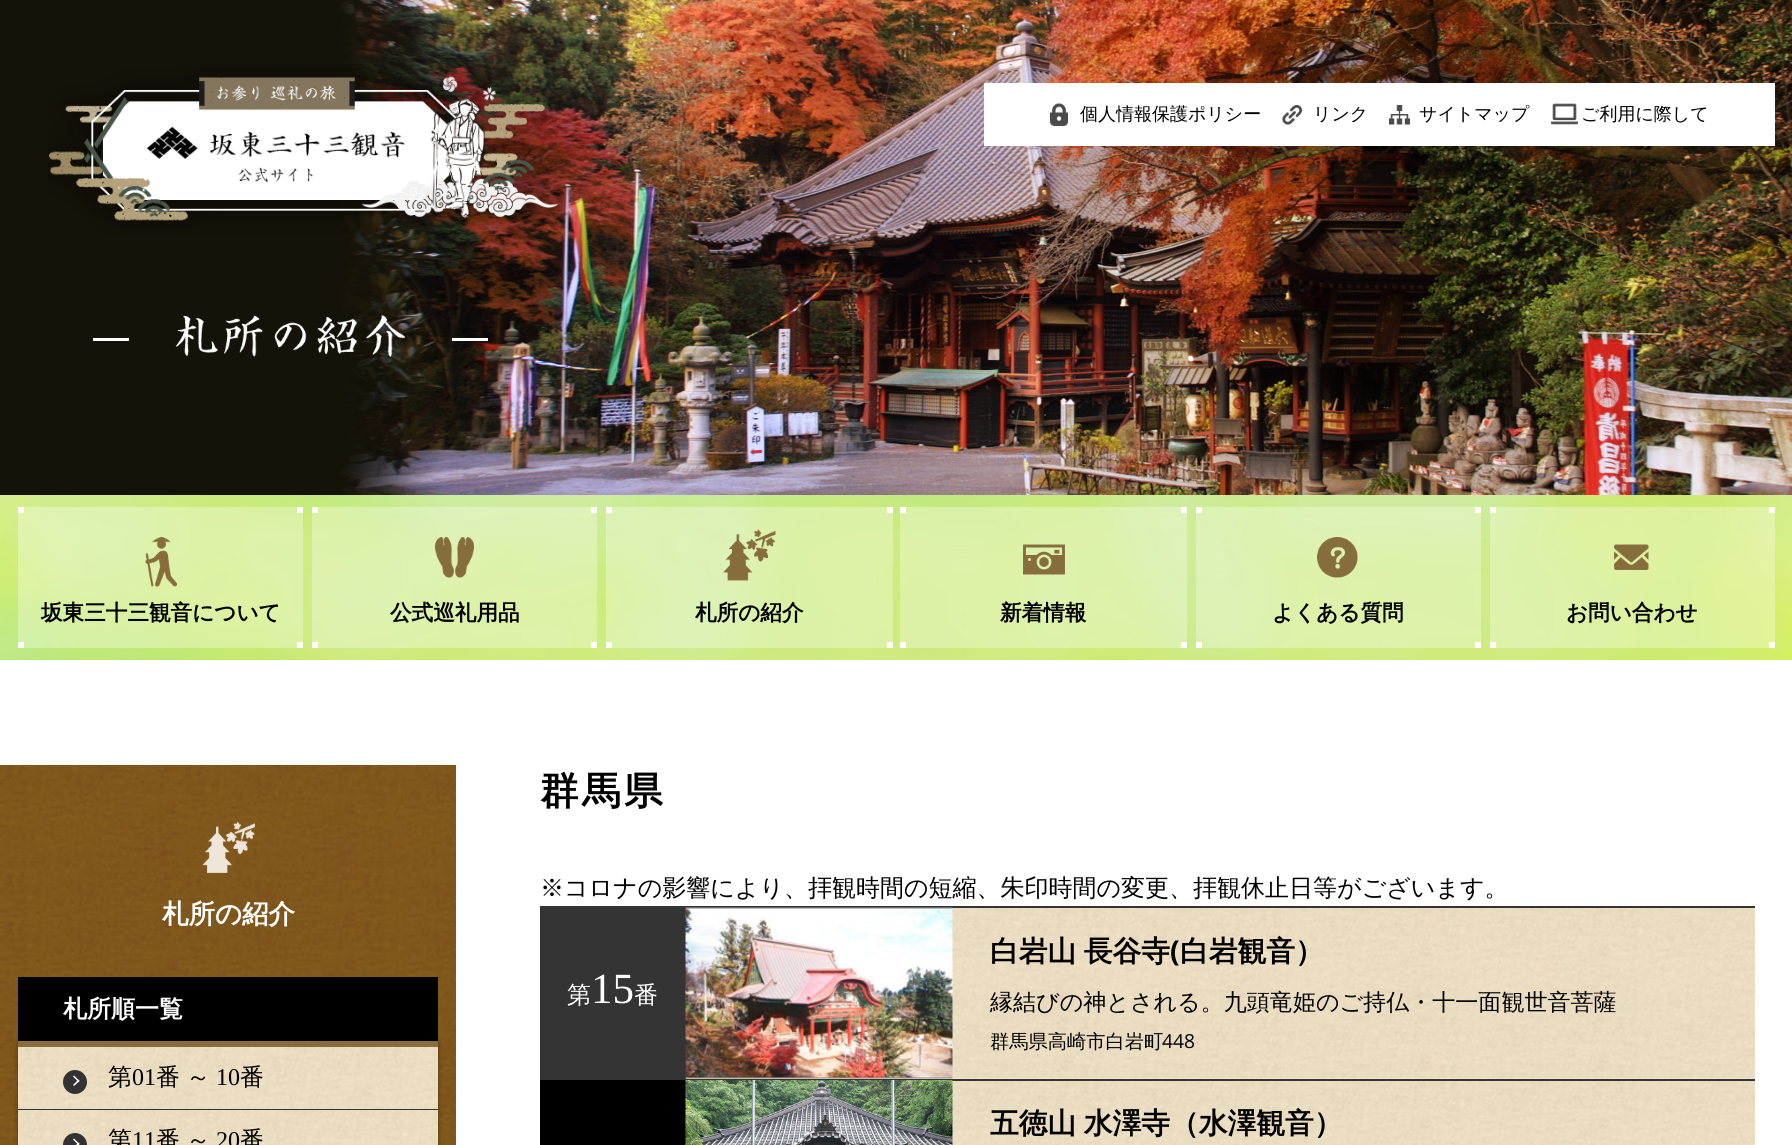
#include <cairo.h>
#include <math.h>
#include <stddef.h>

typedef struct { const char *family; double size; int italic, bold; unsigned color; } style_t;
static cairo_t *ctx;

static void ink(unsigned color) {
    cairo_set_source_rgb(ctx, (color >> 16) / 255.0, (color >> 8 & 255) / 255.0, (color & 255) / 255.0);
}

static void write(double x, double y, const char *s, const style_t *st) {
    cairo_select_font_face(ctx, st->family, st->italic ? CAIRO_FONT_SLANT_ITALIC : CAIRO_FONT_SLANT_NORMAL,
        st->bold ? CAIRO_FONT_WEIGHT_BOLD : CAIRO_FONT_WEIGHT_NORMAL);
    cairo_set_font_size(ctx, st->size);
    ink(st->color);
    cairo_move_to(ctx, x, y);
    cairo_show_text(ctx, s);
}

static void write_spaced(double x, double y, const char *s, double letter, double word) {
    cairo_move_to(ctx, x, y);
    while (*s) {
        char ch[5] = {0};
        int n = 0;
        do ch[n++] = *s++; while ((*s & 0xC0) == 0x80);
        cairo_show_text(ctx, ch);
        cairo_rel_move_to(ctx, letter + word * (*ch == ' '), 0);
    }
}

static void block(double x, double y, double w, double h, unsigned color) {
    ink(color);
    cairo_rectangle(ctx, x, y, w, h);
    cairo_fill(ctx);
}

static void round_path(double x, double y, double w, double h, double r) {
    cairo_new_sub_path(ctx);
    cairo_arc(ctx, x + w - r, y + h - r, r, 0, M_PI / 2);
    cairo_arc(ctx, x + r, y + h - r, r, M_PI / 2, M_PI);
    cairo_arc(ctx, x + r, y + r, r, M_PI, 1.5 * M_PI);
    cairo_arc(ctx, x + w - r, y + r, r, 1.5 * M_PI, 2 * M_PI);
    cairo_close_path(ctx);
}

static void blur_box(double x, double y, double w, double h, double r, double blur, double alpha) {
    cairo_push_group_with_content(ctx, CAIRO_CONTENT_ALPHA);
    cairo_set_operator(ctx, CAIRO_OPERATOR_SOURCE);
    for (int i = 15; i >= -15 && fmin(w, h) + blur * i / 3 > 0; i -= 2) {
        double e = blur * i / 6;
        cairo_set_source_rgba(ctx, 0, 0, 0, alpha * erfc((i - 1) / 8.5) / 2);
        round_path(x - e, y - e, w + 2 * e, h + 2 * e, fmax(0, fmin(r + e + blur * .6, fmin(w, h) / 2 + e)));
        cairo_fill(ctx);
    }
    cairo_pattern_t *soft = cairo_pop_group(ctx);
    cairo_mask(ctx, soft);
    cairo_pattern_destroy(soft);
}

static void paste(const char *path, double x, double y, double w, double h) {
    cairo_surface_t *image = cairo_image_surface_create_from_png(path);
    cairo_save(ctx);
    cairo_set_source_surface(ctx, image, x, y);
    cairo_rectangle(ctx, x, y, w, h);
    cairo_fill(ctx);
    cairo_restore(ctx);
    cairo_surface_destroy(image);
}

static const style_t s1 = {"WenQuanYi Zen Hei Medium", 18, 0, 0, 0x000000};
static const style_t s2 = {"WenQuanYi Zen Hei", 21.6, 0, 1, 0x000000};
static const style_t s3 = {"WenQuanYi Zen Hei", 26.5, 0, 1, 0xffffff};
static const style_t s4 = {"WenQuanYi Zen Hei", 24, 0, 1, 0xffffff};
static const style_t s5 = {"WenQuanYi Zen Hei Medium", 24, 0, 0, 0x000000};
static const style_t s6 = {"Liberation Serif", 24, 0, 0, 0x000000};
static const style_t s7 = {"WenQuanYi Zen Hei Medium", 24, 0, 0, 0xffffff};
static const style_t s8 = {"Liberation Serif", 43, 0, 0, 0xffffff};
static const style_t s9 = {"Open Sans", 28.75, 0, 1, 0x000000};
static const style_t s10 = {"WenQuanYi Zen Hei", 28.75, 0, 1, 0x000000};
static const style_t s11 = {"WenQuanYi Zen Hei Medium", 23.05, 0, 0, 0x000000};
static const style_t s12 = {"WenQuanYi Zen Hei Medium", 19.25, 0, 0, 0x000000};
static const style_t s13 = {"Open Sans", 19.25, 0, 0, 0x000000};

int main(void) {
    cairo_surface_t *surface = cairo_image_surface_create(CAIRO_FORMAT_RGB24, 1792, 1145);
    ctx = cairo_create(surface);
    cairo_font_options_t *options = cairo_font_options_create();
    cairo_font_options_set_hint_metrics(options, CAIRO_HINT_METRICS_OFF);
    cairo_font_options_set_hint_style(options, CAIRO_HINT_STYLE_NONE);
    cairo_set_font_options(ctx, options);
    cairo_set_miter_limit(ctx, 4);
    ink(0xffffff);
    cairo_paint(ctx);
    paste("pic1.png", 0, 0, 1792, 495);
    paste("pic2.png", 48, 64, 529, 172);
    block(984, 83, 791, 63, 0xffffff);
    paste("pic3.png", 1050, 103, 18, 23);
    write(1080, 120, "個人情報保護ポリシー", &s1);
    paste("pic4.png", 1282, 105, 20, 20);
    write(1313, 120, "リンク", &s1);
    paste("pic5.png", 1389, 105, 21, 20);
    write(1419, 120, "サイトマップ", &s1);
    paste("pic6.png", 1551, 103, 27, 22);
    write(1581, 120, "ご利用に際して", &s1);
    block(93, 338, 36, 3, 0xffffff);
    paste("pic7.png", 175, 315, 230, 42);
    block(452, 338, 36, 3, 0xffffff);
    paste("pic8.png", 0, 495, 1792, 165);
    cairo_set_source_rgba(ctx, 1, 1, 1, 0.31);
    cairo_rectangle(ctx, 18, 507, 285, 141);
    cairo_fill(ctx);
    block(18, 507, 6, 6, 0xffffff);
    block(297, 507, 6, 6, 0xffffff);
    paste("pic9.png", 145, 537, 32, 50);
    write(41, 620, "坂東三十三観音について", &s2);
    block(18, 642, 6, 6, 0xffffff);
    block(297, 642, 6, 6, 0xffffff);
    cairo_set_source_rgba(ctx, 1, 1, 1, 0.31);
    cairo_rectangle(ctx, 312, 507, 285, 141);
    cairo_fill(ctx);
    block(312, 507, 6, 6, 0xffffff);
    block(591, 507, 6, 6, 0xffffff);
    paste("pic10.png", 435, 537, 39, 41);
    write(390, 620, "公式巡礼用品", &s2);
    block(312, 642, 6, 6, 0xffffff);
    block(591, 642, 6, 6, 0xffffff);
    cairo_set_source_rgba(ctx, 1, 1, 1, 0.31);
    cairo_rectangle(ctx, 606, 507, 287, 141);
    cairo_fill(ctx);
    block(606, 507, 6, 6, 0xffffff);
    block(887, 507, 6, 6, 0xffffff);
    paste("pic11.png", 723, 529, 53, 52);
    write(695, 620, "札所の紹介", &s2);
    block(606, 642, 6, 6, 0xffffff);
    block(887, 642, 6, 6, 0xffffff);
    cairo_set_source_rgba(ctx, 1, 1, 1, 0.31);
    cairo_rectangle(ctx, 900, 507, 287, 141);
    cairo_fill(ctx);
    block(900, 507, 6, 6, 0xffffff);
    block(1181, 507, 6, 6, 0xffffff);
    paste("pic12.png", 1023, 544, 42, 31);
    write(1000, 620, "新着情報", &s2);
    block(900, 642, 6, 6, 0xffffff);
    block(1181, 642, 6, 6, 0xffffff);
    cairo_set_source_rgba(ctx, 1, 1, 1, 0.31);
    cairo_rectangle(ctx, 1196, 507, 285, 141);
    cairo_fill(ctx);
    block(1196, 507, 6, 6, 0xffffff);
    block(1475, 507, 6, 6, 0xffffff);
    paste("pic13.png", 1317, 537, 41, 41);
    write(1272, 620, "よくある質問", &s2);
    block(1196, 642, 6, 6, 0xffffff);
    block(1475, 642, 6, 6, 0xffffff);
    cairo_set_source_rgba(ctx, 1, 1, 1, 0.31);
    cairo_rectangle(ctx, 1490, 507, 285, 141);
    cairo_fill(ctx);
    block(1490, 507, 6, 6, 0xffffff);
    block(1769, 507, 6, 6, 0xffffff);
    paste("pic14.png", 1614, 544, 35, 26);
    write(1566, 620, "お問い合わせ", &s2);
    block(1490, 642, 6, 6, 0xffffff);
    block(1769, 642, 6, 6, 0xffffff);
    paste("pic15.png", 0, 765, 456, 380);
    paste("pic16.png", 202, 822, 53, 51);
    write(162, 923, "札所の紹介", &s3);
    block(18, 977, 420, 64, 0x000000);
    write(63, 1017, "札所順一覧", &s4);
    ink(0x000000);
    blur_box(18, 1041, 420, 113, 0, 3, 0.34);
    block(18, 1041, 420, 6, 0x866d3c);
    paste("pic17.png", 18, 1047, 420, 62);
    block(18, 1109, 420, 1, 0x333333);
    cairo_arc(ctx, 75, 1082, 12, 0, 2 * M_PI);
    cairo_fill(ctx);
    write(108, 1085, "第", &s5);
    write(132, 1085, "01", &s6);
    cairo_select_font_face(ctx, "WenQuanYi Zen Hei Medium", CAIRO_FONT_SLANT_NORMAL, CAIRO_FONT_WEIGHT_NORMAL);
    write_spaced(156, 1085, "番 ～", 0, -1);
    write(216, 1085, "10", &s6);
    write(240, 1085, "番", &s5);
    ink(0xffffff);
    cairo_new_path(ctx);
    cairo_move_to(ctx, 74, 1075.5);
    cairo_line_to(ctx, 79.5, 1081);
    cairo_line_to(ctx, 78.5, 1082);
    cairo_line_to(ctx, 73, 1076.5);
    cairo_close_path(ctx);
    cairo_fill(ctx);
    cairo_new_path(ctx);
    cairo_move_to(ctx, 78.5, 1079.5);
    cairo_line_to(ctx, 79.5, 1081);
    cairo_line_to(ctx, 74, 1086);
    cairo_line_to(ctx, 73, 1085);
    cairo_close_path(ctx);
    cairo_fill(ctx);
    paste("pic18.png", 18, 1110, 420, 35);
    ink(0x333333);
    cairo_arc(ctx, 75, 1145, 12, 0, 2 * M_PI);
    cairo_fill(ctx);
    write(108, 1148, "第", &s5);
    write(132, 1148, "11", &s6);
    cairo_select_font_face(ctx, "WenQuanYi Zen Hei Medium", CAIRO_FONT_SLANT_NORMAL, CAIRO_FONT_WEIGHT_NORMAL);
    write_spaced(156, 1148, "番 ～", 0, -1);
    write(216, 1148, "20", &s6);
    write(240, 1148, "番", &s5);
    ink(0xffffff);
    cairo_new_path(ctx);
    cairo_move_to(ctx, 74, 1138.5);
    cairo_line_to(ctx, 79.5, 1144);
    cairo_line_to(ctx, 78.5, 1145);
    cairo_line_to(ctx, 73, 1139.5);
    cairo_close_path(ctx);
    cairo_fill(ctx);
    cairo_new_path(ctx);
    cairo_move_to(ctx, 78.5, 1142.5);
    cairo_line_to(ctx, 79.5, 1144);
    cairo_line_to(ctx, 74, 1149);
    cairo_line_to(ctx, 73, 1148);
    cairo_close_path(ctx);
    cairo_fill(ctx);
    cairo_select_font_face(ctx, "WenQuanYi Zen Hei", CAIRO_FONT_SLANT_NORMAL, CAIRO_FONT_WEIGHT_BOLD);
    cairo_set_font_size(ctx, 38.5);
    ink(0x000000);
    write_spaced(540, 804, "群馬県", 3.5, 0);
    write(540, 896, "※コロナの影響により、拝観時間の短縮、朱印時間の変更、拝観休止日等がございます。", &s5);
    paste("pic19.png", 686, 908, 1069, 171);
    block(540, 906, 1215, 2, 0x343434);
    block(540, 908, 146, 171, 0x343434);
    write(567, 1003, "第", &s7);
    write(591, 1003, "15", &s8);
    write(634, 1003, "番", &s7);
    paste("pic21.png", 686, 1078, 1069, 67);
    paste("pic20.png", 685, 907, 268, 172);
    cairo_select_font_face(ctx, "WenQuanYi Zen Hei", CAIRO_FONT_SLANT_NORMAL, CAIRO_FONT_WEIGHT_BOLD);
    cairo_set_font_size(ctx, 28.75);
    ink(0x000000);
    write_spaced(990, 961, "白岩山 長谷寺", 0, -1);
    write(1170, 961, "(", &s9);
    write(1180, 961, "白岩観音）", &s10);
    write(990, 1010, "縁結びの神とされる。九頭竜姫のご持仏・十一面観世音菩薩", &s11);
    write(990, 1048, "群馬県高崎市白岩町", &s12);
    write(1162, 1048, "448", &s13);
    block(540, 1079, 1215, 2, 0x343434);
    block(540, 1080, 146, 65, 0x000000);
    paste("pic22.png", 685, 1080, 268, 65);
    cairo_select_font_face(ctx, "WenQuanYi Zen Hei", CAIRO_FONT_SLANT_NORMAL, CAIRO_FONT_WEIGHT_BOLD);
    cairo_set_font_size(ctx, 28.75);
    write_spaced(990, 1133, "五徳山 水澤寺（水澤観音）", 0, -1);
    cairo_surface_write_to_png(surface, "screenshot.png");
    cairo_font_options_destroy(options);
    cairo_destroy(ctx);
    cairo_surface_destroy(surface);
    return 0;
}
